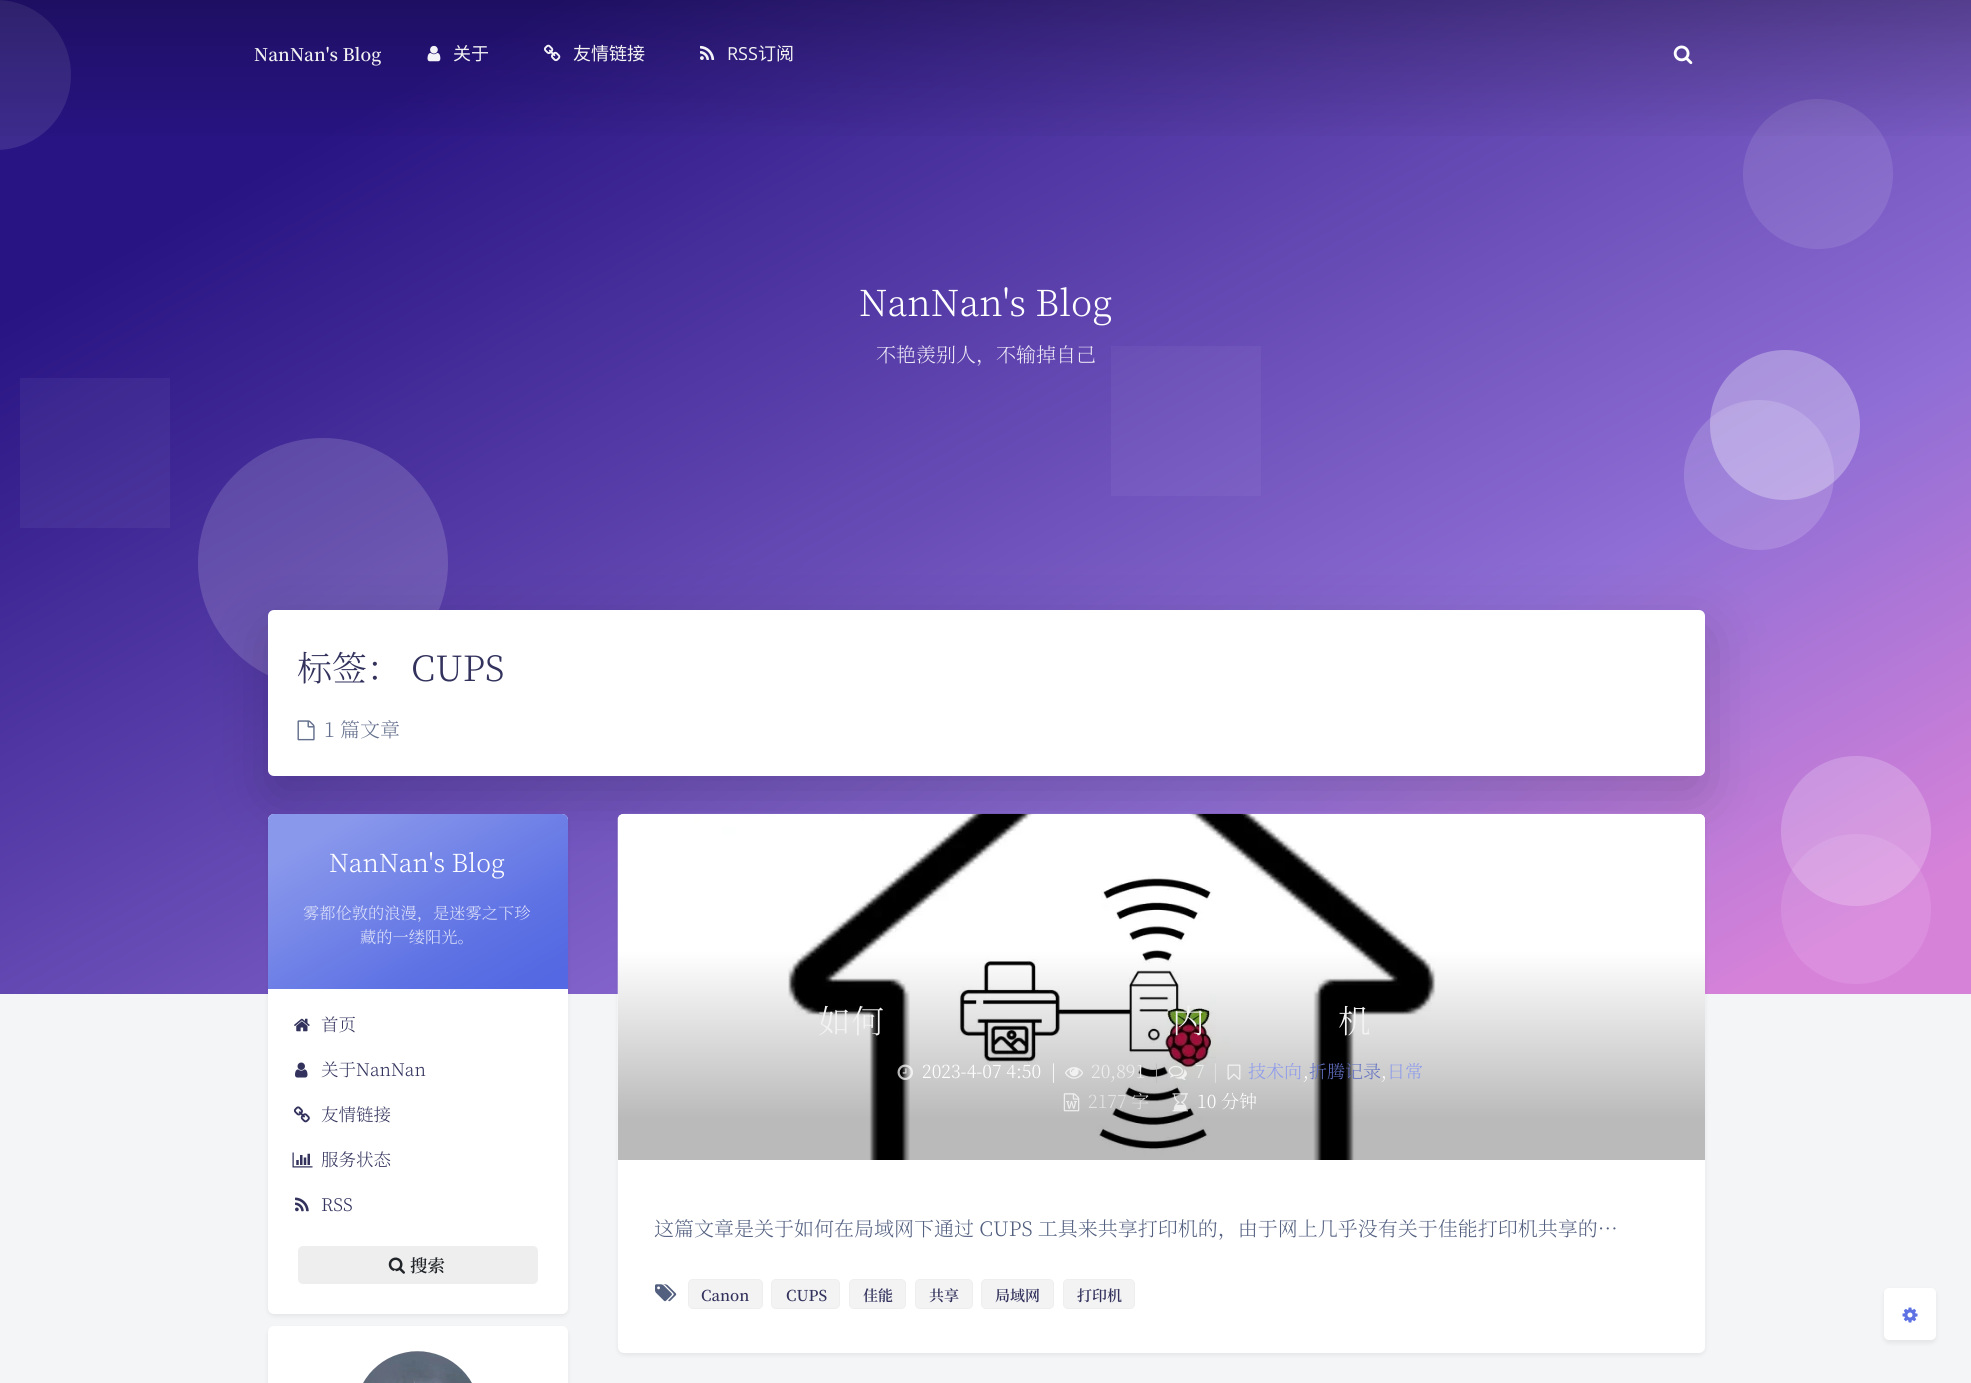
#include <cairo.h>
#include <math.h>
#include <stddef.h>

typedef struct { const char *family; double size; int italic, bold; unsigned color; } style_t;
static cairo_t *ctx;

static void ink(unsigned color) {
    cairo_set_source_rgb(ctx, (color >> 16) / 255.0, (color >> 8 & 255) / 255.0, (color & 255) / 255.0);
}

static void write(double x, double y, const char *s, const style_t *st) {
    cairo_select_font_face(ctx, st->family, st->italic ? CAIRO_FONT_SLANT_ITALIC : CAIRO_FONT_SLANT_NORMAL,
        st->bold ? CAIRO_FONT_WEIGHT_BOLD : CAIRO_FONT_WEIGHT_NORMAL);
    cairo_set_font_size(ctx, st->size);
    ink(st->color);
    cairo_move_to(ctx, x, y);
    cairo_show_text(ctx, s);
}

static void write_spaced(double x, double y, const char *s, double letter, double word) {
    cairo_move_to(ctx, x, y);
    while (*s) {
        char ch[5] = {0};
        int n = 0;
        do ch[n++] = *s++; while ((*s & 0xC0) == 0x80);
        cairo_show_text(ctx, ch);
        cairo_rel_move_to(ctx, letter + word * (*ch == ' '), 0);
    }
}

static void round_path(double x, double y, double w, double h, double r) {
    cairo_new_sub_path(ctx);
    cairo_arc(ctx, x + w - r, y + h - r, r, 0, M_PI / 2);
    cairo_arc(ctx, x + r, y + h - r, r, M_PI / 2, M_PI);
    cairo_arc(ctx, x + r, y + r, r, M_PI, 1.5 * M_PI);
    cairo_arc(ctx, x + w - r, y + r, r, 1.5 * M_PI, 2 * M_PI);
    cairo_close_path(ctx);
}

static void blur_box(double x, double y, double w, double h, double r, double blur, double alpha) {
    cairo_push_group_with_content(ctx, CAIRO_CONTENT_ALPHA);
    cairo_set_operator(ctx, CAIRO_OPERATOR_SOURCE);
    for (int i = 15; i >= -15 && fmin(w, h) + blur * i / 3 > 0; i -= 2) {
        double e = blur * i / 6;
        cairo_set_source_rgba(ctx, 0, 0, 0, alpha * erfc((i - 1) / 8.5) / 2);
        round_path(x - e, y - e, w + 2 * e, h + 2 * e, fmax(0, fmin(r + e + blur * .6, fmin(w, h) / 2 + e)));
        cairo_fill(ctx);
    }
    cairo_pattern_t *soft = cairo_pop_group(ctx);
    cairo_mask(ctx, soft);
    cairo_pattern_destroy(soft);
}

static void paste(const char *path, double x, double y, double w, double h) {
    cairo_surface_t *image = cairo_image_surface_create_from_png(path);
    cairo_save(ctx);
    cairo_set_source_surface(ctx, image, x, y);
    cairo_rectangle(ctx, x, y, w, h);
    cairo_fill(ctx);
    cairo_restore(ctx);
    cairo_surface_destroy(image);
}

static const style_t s1 = {"Noto Serif SC SemiBold", 17.5, 0, 0, 0xf3f3f3};
static const style_t s2 = {"Noto Sans CJK SC", 18, 0, 0, 0xf3f3f3};
static const style_t s3 = {"Open Sans", 18, 0, 0, 0xf3f3f3};
static const style_t s4 = {"Noto Serif SC Light", 36, 0, 0, 0xffffff};
static const style_t s5 = {"Noto Serif SC Light", 20, 0, 0, 0xefecf7};
static const style_t s6 = {"Noto Serif SC Light", 35, 0, 0, 0x32325d};
static const style_t s7 = {"Noto Serif SC Light", 20, 0, 0, 0x636f8c};
static const style_t s8 = {"Noto Serif SC Light", 25, 0, 0, 0xffffff};
static const style_t s9 = {"Noto Serif SC Light", 16.25, 0, 0, 0xe2e5fa};
static const style_t s10 = {"Noto Serif SC Light", 17.5, 0, 0, 0x32325d};
static const style_t s11 = {"Noto Serif SC SemiBold", 17.5, 0, 0, 0x212529};
static const style_t s12 = {"Noto Serif SC Light", 17.5, 0, 0, 0xededed};
static const style_t s13 = {"Noto Serif SC Light", 18, 0, 0, 0xffffff};
static const style_t s14 = {"Noto Serif SC Light", 18, 0, 0, 0xededed};
static const style_t s15 = {"Noto Serif SC Light", 18, 0, 0, 0xbcbcbc};
static const style_t s16 = {"Noto Serif SC Light", 18, 0, 0, 0xe3e3e3};
static const style_t s17 = {"Noto Serif SC Light", 18, 0, 0, 0x8b99ec};
static const style_t s18 = {"Noto Serif SC Light", 18, 0, 0, 0x606fc1};
static const style_t s19 = {"Noto Serif SC Light", 20, 0, 0, 0x525f7f};
static const style_t s20 = {"Noto Serif SC SemiBold", 15, 0, 0, 0x32325d};

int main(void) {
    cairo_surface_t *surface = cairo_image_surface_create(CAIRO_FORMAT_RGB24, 1971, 1383);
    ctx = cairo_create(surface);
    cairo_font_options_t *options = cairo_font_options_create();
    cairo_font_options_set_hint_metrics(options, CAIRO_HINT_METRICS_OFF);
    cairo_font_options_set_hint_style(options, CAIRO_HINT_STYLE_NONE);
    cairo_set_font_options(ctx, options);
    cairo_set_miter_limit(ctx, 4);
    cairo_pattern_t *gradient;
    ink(0xf4f5f7);
    cairo_paint(ctx);
    gradient = cairo_pattern_create_linear(524, -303, 1447, 1296);
    cairo_pattern_add_color_stop_rgba(gradient, 0.15, 0.157, 0.078, 0.514, 1);
    cairo_pattern_add_color_stop_rgba(gradient, 0.7, 0.561, 0.431, 0.835, 1);
    cairo_pattern_add_color_stop_rgba(gradient, 0.94, 0.843, 0.51, 0.851, 1);
    cairo_set_source(ctx, gradient);
    cairo_pattern_destroy(gradient);
    cairo_rectangle(ctx, 0, 0, 1971, 994);
    cairo_fill(ctx);
    ink(0x3e2c8f);
    cairo_new_path(ctx);
    cairo_move_to(ctx, 0, 0);
    cairo_line_to(ctx, -4, 0);
    cairo_curve_to(ctx, 37.5, 0, 71, 33.5, 71, 75);
    cairo_curve_to(ctx, 71, 116.5, 37.5, 150, -4, 150);
    cairo_line_to(ctx, 0, 150);
    cairo_close_path(ctx);
    cairo_fill(ctx);
    cairo_set_source_rgba(ctx, 1, 1, 1, 0.1);
    cairo_arc(ctx, 1818, 174, 75, 0, 2 * M_PI);
    cairo_fill(ctx);
    gradient = cairo_pattern_create_linear(986, 0, 986, 150);
    cairo_pattern_add_color_stop_rgba(gradient, 0, 0, 0, 0, 0.25);
    cairo_pattern_add_color_stop_rgba(gradient, 0.35, 0, 0, 0, 0.15);
    cairo_pattern_add_color_stop_rgba(gradient, 1, 0, 0, 0, 0);
    cairo_set_source(ctx, gradient);
    cairo_pattern_destroy(gradient);
    cairo_rectangle(ctx, 0, 0, 1971, 136);
    cairo_fill(ctx);
    write(254, 61, "NanNan's Blog", &s1);
    paste("pic1.png", 427, 45, 14, 17);
    write(453, 60, "关于", &s2);
    paste("pic2.png", 543, 44, 18, 18);
    write(573, 60, "友情链接", &s2);
    paste("pic3.png", 700, 45, 15, 15);
    write(727, 60, "RSS", &s3);
    write(758, 60, "订阅", &s2);
    paste("pic4.png", 1673, 45, 20, 20);
    cairo_set_source_rgba(ctx, 1, 1, 1, 0.05);
    cairo_rectangle(ctx, 20, 378, 150, 150);
    cairo_fill(ctx);
    cairo_set_source_rgba(ctx, 1, 1, 1, 0.04);
    cairo_rectangle(ctx, 1111, 346, 150, 150);
    cairo_fill(ctx);
    cairo_set_source_rgba(ctx, 1, 1, 1, 0.3);
    cairo_arc(ctx, 1785, 425, 75, 0, 2 * M_PI);
    cairo_fill(ctx);
    cairo_set_source_rgba(ctx, 1, 1, 1, 0.15);
    cairo_arc(ctx, 323, 563, 125, 0, 2 * M_PI);
    cairo_fill(ctx);
    cairo_arc(ctx, 1759, 475, 75, 0, 2 * M_PI);
    cairo_fill(ctx);
    cairo_set_source_rgba(ctx, 1, 1, 1, 0.2);
    cairo_arc(ctx, 1856, 831, 75, 0, 2 * M_PI);
    cairo_fill(ctx);
    cairo_set_source_rgba(ctx, 1, 1, 1, 0.1);
    cairo_arc(ctx, 1856, 909, 75, 0, 2 * M_PI);
    cairo_fill(ctx);
    write(859, 316, "NanNan's Blog", &s4);
    write(876, 362, "不艳羡别人，不输掉自己", &s5);
    ink(0x000000);
    blur_box(268, 630, 1437, 166, 6, 30, 0.18);
    ink(0xffffff);
    round_path(268, 610, 1437, 166, 6);
    cairo_fill(ctx);
    write(297, 681, "标签： CUPS", &s6);
    paste("pic5.png", 297, 720, 18, 21);
    write(324, 737, "1 篇文章", &s7);
    ink(0x000000);
    blur_box(268, 816, 300, 500, 6, 2.5, 0.07);
    ink(0xffffff);
    round_path(268, 814, 300, 500, 6);
    cairo_fill(ctx);
    gradient = cairo_pattern_create_linear(342, 771, 493, 1032);
    cairo_pattern_add_color_stop_rgba(gradient, 0.15, 0.537, 0.596, 0.922, 1);
    cairo_pattern_add_color_stop_rgba(gradient, 0.7, 0.369, 0.447, 0.894, 1);
    cairo_pattern_add_color_stop_rgba(gradient, 0.94, 0.325, 0.408, 0.886, 1);
    cairo_set_source(ctx, gradient);
    cairo_pattern_destroy(gradient);
    cairo_new_path(ctx);
    cairo_move_to(ctx, 274, 814);
    cairo_line_to(ctx, 562, 814);
    cairo_curve_to(ctx, 565.5, 814, 568, 816.5, 568, 820);
    cairo_line_to(ctx, 568, 989);
    cairo_line_to(ctx, 268, 989);
    cairo_line_to(ctx, 268, 820);
    cairo_curve_to(ctx, 268, 816.5, 270.5, 814, 274, 814);
    cairo_close_path(ctx);
    cairo_fill(ctx);
    write(329, 872, "NanNan's Blog", &s8);
    write(303, 919, "雾都伦敦的浪漫，是迷雾之下珍", &s9);
    write(360, 943, "藏的一缕阳光。", &s9);
    paste("pic6.png", 294, 1018, 16, 14);
    write(321, 1031, "首页", &s10);
    paste("pic7.png", 295, 1062, 13, 16);
    write(321, 1076, "关于NanNan", &s10);
    paste("pic8.png", 293, 1106, 17, 17);
    write(321, 1121, "友情链接", &s10);
    paste("pic9.png", 292, 1152, 21, 16);
    write(321, 1166, "服务状态", &s10);
    paste("pic10.png", 295, 1197, 14, 15);
    write(321, 1211, "RSS", &s10);
    ink(0xeeeeee);
    round_path(298, 1246, 240, 38, 5);
    cairo_fill(ctx);
    paste("pic11.png", 388, 1257, 17, 17);
    write(410, 1272, "搜索", &s11);
    write(392, 1272, ".", &s12);
    ink(0x000000);
    blur_box(268, 1329, 300, 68, 6, 2.5, 0.07);
    ink(0xffffff);
    round_path(268, 1326, 300, 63, 6);
    cairo_fill(ctx);
    cairo_set_source_rgba(ctx, 0.498, 0.498, 0.498, 0.1);
    round_path(355, 1351, 125, 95, 62.5);
    cairo_fill(ctx);
    paste("pic12.png", 363, 1351, 109, 32);
    ink(0x000000);
    blur_box(618, 816, 1087, 539, 6, 2.5, 0.07);
    ink(0xffffff);
    round_path(618, 814, 1087, 539, 6);
    cairo_fill(ctx);
    paste("pic13.png", 617, 813, 1088, 347);
    cairo_set_font_size(ctx, 32.5);
    ink(0xf3f3f3);
    write_spaced(818, 1033, "如何", 1, 0);
    write_spaced(1172, 1033, "内", 1, 0);
    write_spaced(1338, 1033, "机", 1, 0);
    paste("pic14.png", 897, 1064, 16, 16);
    write(922, 1078, "2023-4-07 4:50", &s13);
    write(1051, 1078, "|", &s13);
    paste("pic15.png", 1065, 1067, 18, 12);
    write(1091, 1078, "20,891", &s14);
    write(1154, 1078, "|", &s15);
    paste("pic16.png", 1168, 1065, 19, 15);
    write(1195, 1078, "7", &s14);
    write(1213, 1078, "|", &s16);
    paste("pic17.png", 1227, 1064, 14, 16);
    write(1248, 1078, "技术向", &s17);
    write(1303, 1078, ",", &s13);
    write(1309, 1078, "折腾记录", &s18);
    write(1381, 1078, ",", &s13);
    write(1387, 1078, "日常", &s17);
    paste("pic18.png", 1063, 1093, 17, 19);
    write(1088, 1108, "2177 字", &s16);
    paste("pic19.png", 1172, 1093, 16, 19);
    write(1197, 1108, "10 分钟", &s13);
    write(654, 1236, "这篇文章是关于如何在局域网下通过 CUPS 工具来共享打印机的，由于网上几乎没有关于佳能打印机共享的…", &s19);
    paste("pic20.png", 655, 1284, 22, 18);
    ink(0xf3f3f3);
    round_path(688.5, 1279.5, 74, 29, 4.5);
    cairo_fill_preserve(ctx);
    ink(0xeeeeee);
    cairo_set_line_width(ctx, 1);
    cairo_stroke(ctx);
    write(701, 1301, "Canon", &s20);
    ink(0xf3f3f3);
    round_path(771.5, 1279.5, 68, 29, 4.5);
    cairo_fill_preserve(ctx);
    ink(0xeeeeee);
    cairo_stroke(ctx);
    write(786, 1301, "CUPS", &s20);
    ink(0xf3f3f3);
    round_path(849.5, 1279.5, 56, 29, 4.5);
    cairo_fill_preserve(ctx);
    ink(0xeeeeee);
    cairo_stroke(ctx);
    write(863, 1301, "佳能", &s20);
    ink(0xf3f3f3);
    round_path(915.5, 1279.5, 57, 29, 4.5);
    cairo_fill_preserve(ctx);
    ink(0xeeeeee);
    cairo_stroke(ctx);
    write(929, 1301, "共享", &s20);
    ink(0xf3f3f3);
    round_path(981.5, 1279.5, 72, 29, 4.5);
    cairo_fill_preserve(ctx);
    ink(0xeeeeee);
    cairo_stroke(ctx);
    write(995, 1301, "局域网", &s20);
    ink(0xf3f3f3);
    round_path(1063.5, 1279.5, 71, 29, 4.5);
    cairo_fill_preserve(ctx);
    ink(0xeeeeee);
    cairo_stroke(ctx);
    write(1077, 1301, "打印机", &s20);
    ink(0x000000);
    blur_box(1884, 1290, 52, 53, 5, 2.5, 0.07);
    ink(0xffffff);
    round_path(1884, 1288, 52, 52, 5);
    cairo_fill(ctx);
    paste("pic21.png", 1902, 1307, 16, 16);
    cairo_surface_write_to_png(surface, "screenshot.png");
    cairo_font_options_destroy(options);
    cairo_destroy(ctx);
    cairo_surface_destroy(surface);
    return 0;
}
